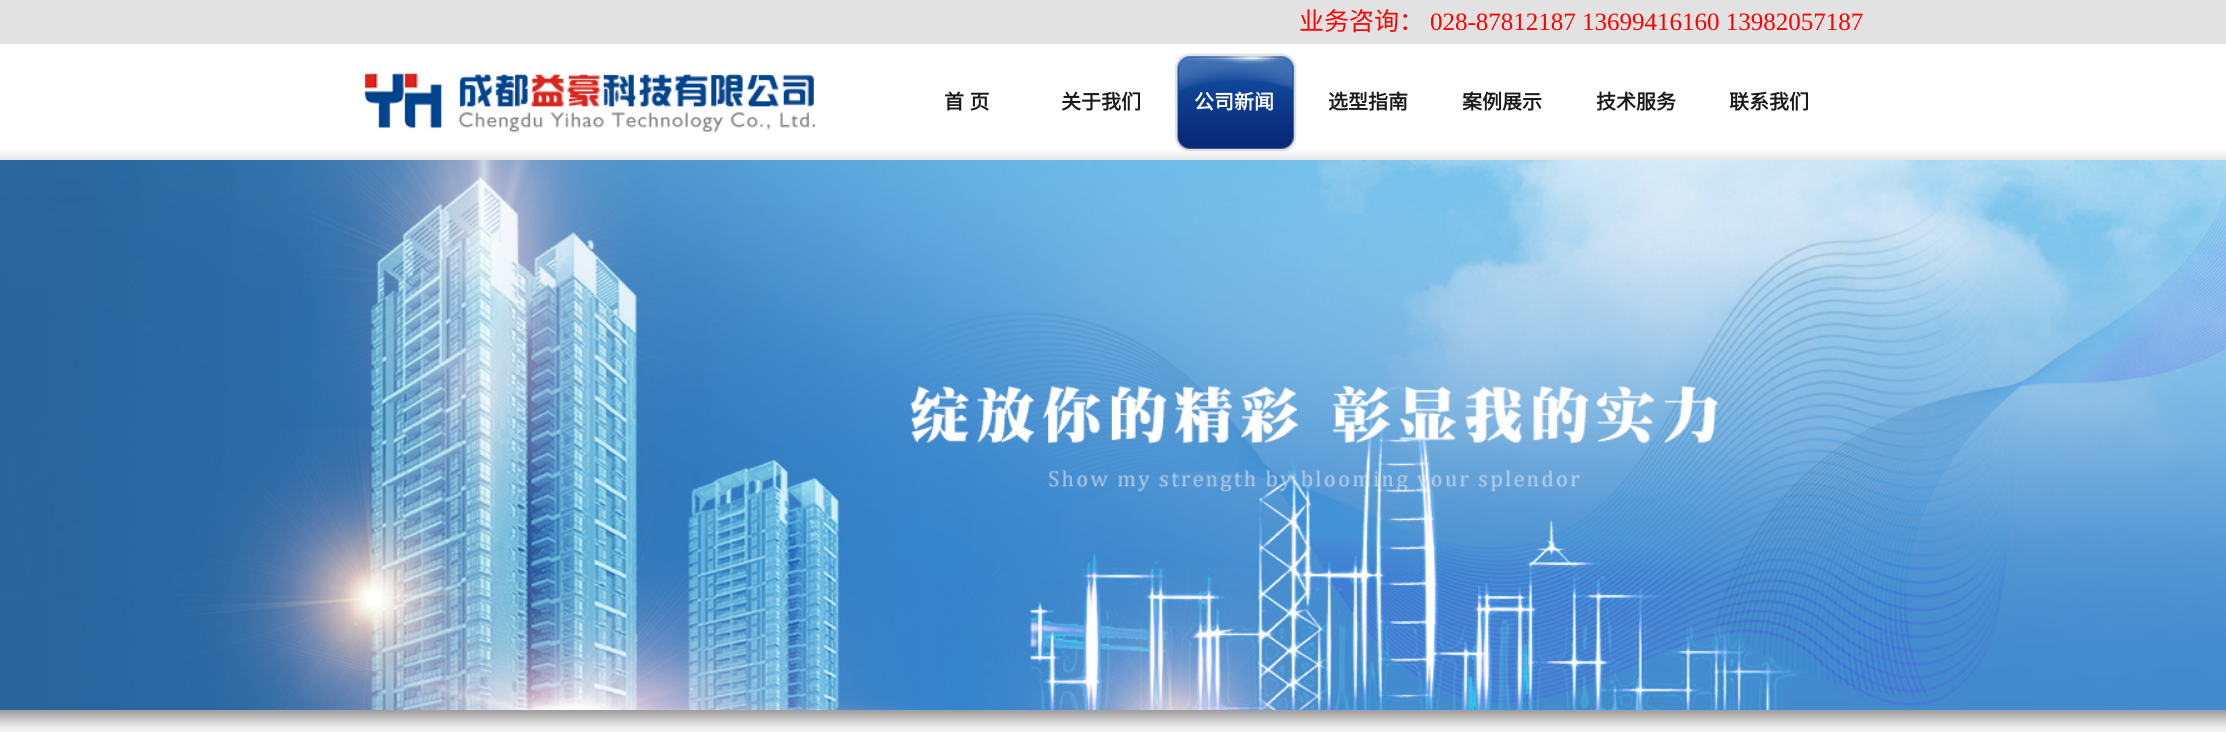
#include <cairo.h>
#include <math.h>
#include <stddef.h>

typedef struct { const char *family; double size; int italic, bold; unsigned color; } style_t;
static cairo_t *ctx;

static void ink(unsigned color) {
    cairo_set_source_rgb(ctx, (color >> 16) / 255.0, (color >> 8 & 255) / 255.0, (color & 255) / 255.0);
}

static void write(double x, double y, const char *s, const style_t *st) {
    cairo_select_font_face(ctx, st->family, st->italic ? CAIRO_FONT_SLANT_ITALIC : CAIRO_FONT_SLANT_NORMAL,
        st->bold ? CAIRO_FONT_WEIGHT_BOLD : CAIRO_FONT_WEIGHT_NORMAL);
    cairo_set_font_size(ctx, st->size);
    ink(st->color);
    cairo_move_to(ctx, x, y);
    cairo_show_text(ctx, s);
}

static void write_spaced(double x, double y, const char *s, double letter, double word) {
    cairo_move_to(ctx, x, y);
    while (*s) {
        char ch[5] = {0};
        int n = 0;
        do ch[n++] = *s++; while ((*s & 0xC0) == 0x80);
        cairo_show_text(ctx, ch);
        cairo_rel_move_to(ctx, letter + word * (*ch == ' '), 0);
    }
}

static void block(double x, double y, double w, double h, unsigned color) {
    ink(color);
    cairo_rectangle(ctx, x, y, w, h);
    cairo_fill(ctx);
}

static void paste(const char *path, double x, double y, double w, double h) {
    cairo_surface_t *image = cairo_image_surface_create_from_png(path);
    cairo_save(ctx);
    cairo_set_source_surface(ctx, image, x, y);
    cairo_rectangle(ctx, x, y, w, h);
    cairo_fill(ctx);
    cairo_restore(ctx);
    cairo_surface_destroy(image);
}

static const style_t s1 = {"Noto Sans CJK SC", 25, 0, 0, 0xff0000};
static const style_t s2 = {"Liberation Serif", 25, 0, 0, 0xff0000};
static const style_t s3 = {"Noto Sans CJK SC", 20, 0, 1, 0x1a1a1a};
static const style_t s4 = {"Noto Sans CJK SC", 20, 0, 1, 0xffffff};

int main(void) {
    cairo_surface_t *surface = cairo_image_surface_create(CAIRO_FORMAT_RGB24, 2226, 732);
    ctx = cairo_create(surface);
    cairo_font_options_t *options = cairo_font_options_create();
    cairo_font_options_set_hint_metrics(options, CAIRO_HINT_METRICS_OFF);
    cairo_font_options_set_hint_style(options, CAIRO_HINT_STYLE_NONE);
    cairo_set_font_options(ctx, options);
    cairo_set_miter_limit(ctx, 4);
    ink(0xffffff);
    cairo_paint(ctx);
    block(0, 0, 2226, 44, 0xe2e2e2);
    write(1299, 30, "业务咨询：", &s1);
    write(1430, 30, "028-87812187 13699416160 13982057187", &s2);
    paste("pic1.png", 0, 151, 2226, 9);
    paste("pic2.png", 364, 73, 451, 60);
    cairo_select_font_face(ctx, "Noto Sans CJK SC", CAIRO_FONT_SLANT_NORMAL, CAIRO_FONT_WEIGHT_BOLD);
    cairo_set_font_size(ctx, 20);
    ink(0x1a1a1a);
    write_spaced(944, 109, "首 页", 0, 1);
    write(1061, 109, "关于我们", &s3);
    paste("pic3.png", 1175, 53, 122, 99);
    write(1194, 109, "公司新闻", &s4);
    write(1328, 109, "选型指南", &s3);
    write(1462, 109, "案例展示", &s3);
    write(1596, 109, "技术服务", &s3);
    write(1729, 109, "联系我们", &s3);
    paste("pic4.png", 0, 710, 2226, 22);
    paste("pic5.png", 0, 160, 2226, 550);
    cairo_surface_write_to_png(surface, "screenshot.png");
    cairo_font_options_destroy(options);
    cairo_destroy(ctx);
    cairo_surface_destroy(surface);
    return 0;
}
